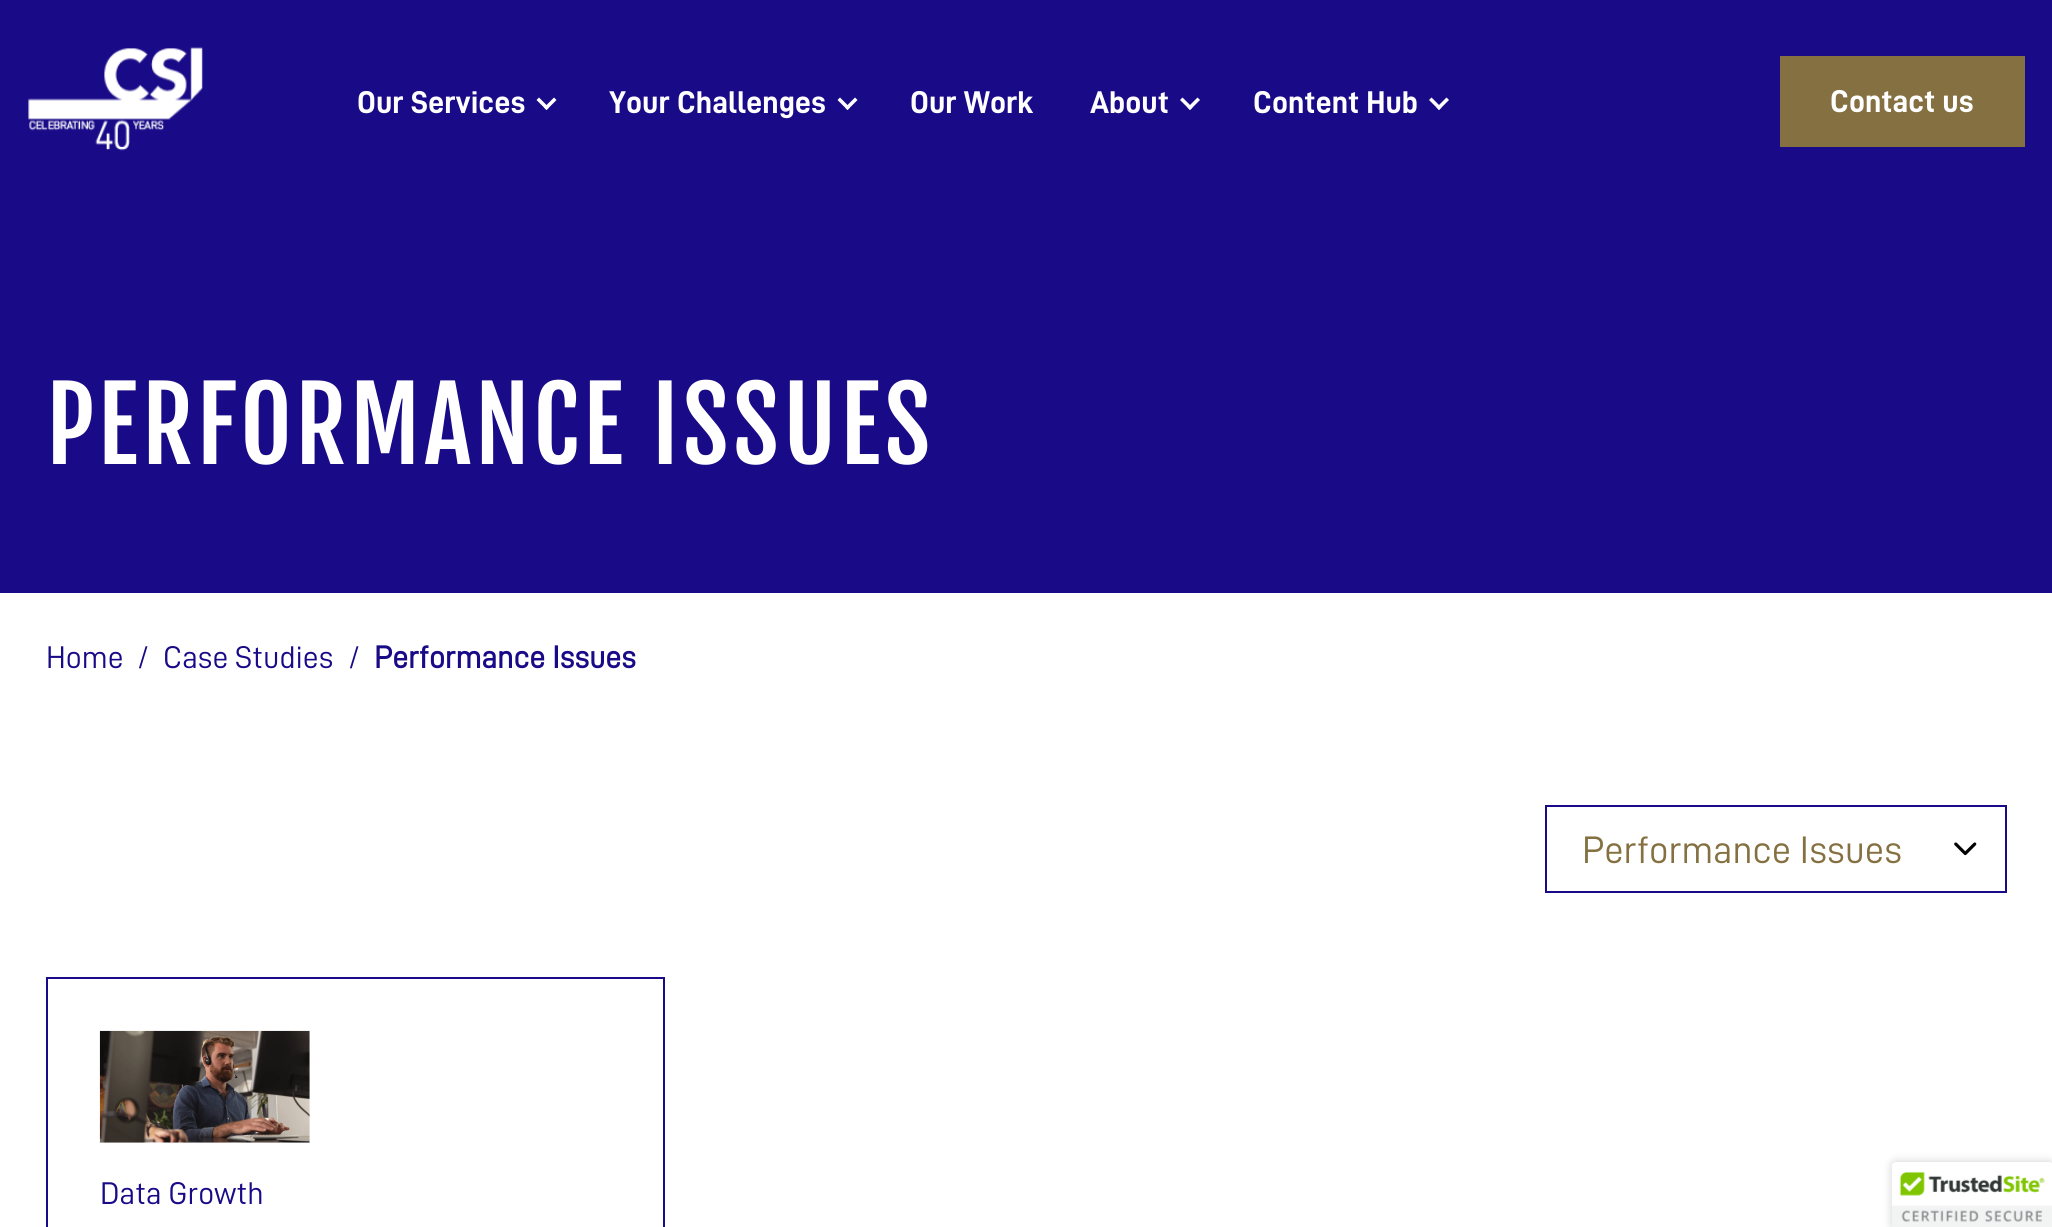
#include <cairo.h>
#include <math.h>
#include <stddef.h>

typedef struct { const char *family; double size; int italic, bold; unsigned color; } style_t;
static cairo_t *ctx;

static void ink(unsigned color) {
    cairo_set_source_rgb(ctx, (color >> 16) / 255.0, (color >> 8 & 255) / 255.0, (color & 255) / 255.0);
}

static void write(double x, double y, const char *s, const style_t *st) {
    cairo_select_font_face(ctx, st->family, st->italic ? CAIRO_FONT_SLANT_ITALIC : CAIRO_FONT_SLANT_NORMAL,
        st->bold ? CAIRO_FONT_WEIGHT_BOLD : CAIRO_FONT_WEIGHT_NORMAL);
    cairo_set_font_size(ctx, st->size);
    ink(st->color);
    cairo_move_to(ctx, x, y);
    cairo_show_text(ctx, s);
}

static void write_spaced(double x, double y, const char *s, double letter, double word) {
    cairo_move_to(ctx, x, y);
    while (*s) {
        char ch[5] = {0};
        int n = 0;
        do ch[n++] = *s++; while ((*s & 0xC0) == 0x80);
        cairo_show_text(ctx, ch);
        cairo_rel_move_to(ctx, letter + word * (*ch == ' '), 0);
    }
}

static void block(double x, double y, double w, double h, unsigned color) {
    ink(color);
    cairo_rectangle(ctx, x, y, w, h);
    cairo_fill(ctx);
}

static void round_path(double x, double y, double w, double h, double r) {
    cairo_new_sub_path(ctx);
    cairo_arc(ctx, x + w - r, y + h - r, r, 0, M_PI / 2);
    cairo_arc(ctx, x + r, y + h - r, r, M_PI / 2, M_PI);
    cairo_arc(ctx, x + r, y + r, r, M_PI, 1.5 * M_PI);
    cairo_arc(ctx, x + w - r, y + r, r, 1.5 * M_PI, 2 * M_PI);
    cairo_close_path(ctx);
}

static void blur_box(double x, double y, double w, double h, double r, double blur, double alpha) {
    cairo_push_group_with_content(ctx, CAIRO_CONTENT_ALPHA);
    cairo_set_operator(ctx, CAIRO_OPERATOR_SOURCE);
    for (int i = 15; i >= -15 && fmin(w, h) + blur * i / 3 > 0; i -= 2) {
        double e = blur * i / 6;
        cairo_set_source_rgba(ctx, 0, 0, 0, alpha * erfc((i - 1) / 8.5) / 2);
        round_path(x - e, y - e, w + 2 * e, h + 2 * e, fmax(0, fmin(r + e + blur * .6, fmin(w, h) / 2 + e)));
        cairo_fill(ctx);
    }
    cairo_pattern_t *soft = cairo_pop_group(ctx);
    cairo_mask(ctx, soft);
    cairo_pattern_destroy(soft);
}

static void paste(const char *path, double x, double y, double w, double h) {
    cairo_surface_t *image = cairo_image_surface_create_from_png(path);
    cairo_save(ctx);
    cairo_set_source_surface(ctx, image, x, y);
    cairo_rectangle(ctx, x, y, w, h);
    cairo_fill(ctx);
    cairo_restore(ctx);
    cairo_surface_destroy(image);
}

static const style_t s1 = {"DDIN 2", 31.5, 0, 1, 0xffffff};
static const style_t s2 = {"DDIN", 31.5, 0, 0, 0x190a87};
static const style_t s3 = {"DDIN", 31.5, 0, 1, 0x190a87};
static const style_t s4 = {"DDIN", 38.5, 0, 0, 0x847040};

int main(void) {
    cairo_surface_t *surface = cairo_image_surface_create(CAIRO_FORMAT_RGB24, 2052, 1227);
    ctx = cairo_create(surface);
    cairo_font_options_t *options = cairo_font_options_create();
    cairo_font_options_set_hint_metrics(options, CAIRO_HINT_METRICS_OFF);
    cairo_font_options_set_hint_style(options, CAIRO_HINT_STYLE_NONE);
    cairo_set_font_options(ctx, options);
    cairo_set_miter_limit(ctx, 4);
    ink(0xffffff);
    cairo_paint(ctx);
    block(0, 0, 2052, 593, 0x190a87);
    paste("pic1.png", 28, 47, 175, 104);
    write(357, 113, "Our Services", &s1);
    cairo_new_path(ctx);
    cairo_move_to(ctx, 556.5, 100);
    cairo_line_to(ctx, 546.5, 110);
    cairo_line_to(ctx, 544, 107.5);
    cairo_line_to(ctx, 554, 97.5);
    cairo_close_path(ctx);
    cairo_fill(ctx);
    cairo_new_path(ctx);
    cairo_move_to(ctx, 549, 107.5);
    cairo_line_to(ctx, 546.5, 110);
    cairo_line_to(ctx, 536.5, 100);
    cairo_line_to(ctx, 539, 97.5);
    cairo_close_path(ctx);
    cairo_fill(ctx);
    write(609, 113, "Your Challenges", &s1);
    cairo_new_path(ctx);
    cairo_move_to(ctx, 857.5, 100);
    cairo_line_to(ctx, 847.5, 110);
    cairo_line_to(ctx, 845, 107.5);
    cairo_line_to(ctx, 855, 97.5);
    cairo_close_path(ctx);
    cairo_fill(ctx);
    cairo_new_path(ctx);
    cairo_move_to(ctx, 850, 107.5);
    cairo_line_to(ctx, 847.5, 110);
    cairo_line_to(ctx, 837.5, 100);
    cairo_line_to(ctx, 840, 97.5);
    cairo_close_path(ctx);
    cairo_fill(ctx);
    write(910, 113, "Our Work", &s1);
    write(1090, 113, "About", &s1);
    cairo_new_path(ctx);
    cairo_move_to(ctx, 1200, 100);
    cairo_line_to(ctx, 1190, 110);
    cairo_line_to(ctx, 1187.5, 107.5);
    cairo_line_to(ctx, 1197.5, 97.5);
    cairo_close_path(ctx);
    cairo_fill(ctx);
    cairo_new_path(ctx);
    cairo_move_to(ctx, 1192.5, 107.5);
    cairo_line_to(ctx, 1190, 110);
    cairo_line_to(ctx, 1180, 100);
    cairo_line_to(ctx, 1182.5, 97.5);
    cairo_close_path(ctx);
    cairo_fill(ctx);
    write(1253, 113, "Content Hub", &s1);
    cairo_new_path(ctx);
    cairo_move_to(ctx, 1449, 100);
    cairo_line_to(ctx, 1439, 110);
    cairo_line_to(ctx, 1436.5, 107.5);
    cairo_line_to(ctx, 1446.5, 97.5);
    cairo_close_path(ctx);
    cairo_fill(ctx);
    cairo_new_path(ctx);
    cairo_move_to(ctx, 1441.5, 107.5);
    cairo_line_to(ctx, 1439, 110);
    cairo_line_to(ctx, 1429, 100);
    cairo_line_to(ctx, 1431.5, 97.5);
    cairo_close_path(ctx);
    cairo_fill(ctx);
    block(1780, 56, 245, 91, 0x847040);
    write(1830, 112, "Contact us", &s1);
    cairo_select_font_face(ctx, "Fjalla One", CAIRO_FONT_SLANT_NORMAL, CAIRO_FONT_WEIGHT_NORMAL);
    cairo_set_font_size(ctx, 100.25);
    write_spaced(46, 464, "PERFORMANCE ISSUES", 3.5, 0);
    write(46, 668, "Home", &s2);
    write(137, 668, "/", &s2);
    write(163, 668, "Case Studies", &s2);
    write(348, 668, "/", &s2);
    write(374, 668, "Performance Issues", &s3);
    paste("pic2.png", 1954, 842, 23, 14);
    cairo_rectangle(ctx, 1546, 806, 460, 86);
    cairo_stroke(ctx);
    write(1582, 863, "Performance Issues", &s4);
    cairo_rectangle(ctx, 47, 978, 617, 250);
    ink(0x190a87);
    cairo_stroke(ctx);
    paste("pic3.png", 99, 1030, 211, 113);
    write(100, 1204, "Data Growth", &s2);
    ink(0x000000);
    blur_box(1892, 1162, 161, 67, 4, 4.5, 0.2);
    ink(0xffffff);
    cairo_new_path(ctx);
    cairo_move_to(ctx, 1896, 1162);
    cairo_line_to(ctx, 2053, 1162);
    cairo_line_to(ctx, 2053, 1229);
    cairo_line_to(ctx, 1892, 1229);
    cairo_line_to(ctx, 1892, 1166);
    cairo_curve_to(ctx, 1892, 1164, 1894, 1162, 1896, 1162);
    cairo_close_path(ctx);
    cairo_fill(ctx);
    paste("pic4.png", 1891, 1162, 161, 65);
    cairo_surface_write_to_png(surface, "screenshot.png");
    cairo_font_options_destroy(options);
    cairo_destroy(ctx);
    cairo_surface_destroy(surface);
    return 0;
}
